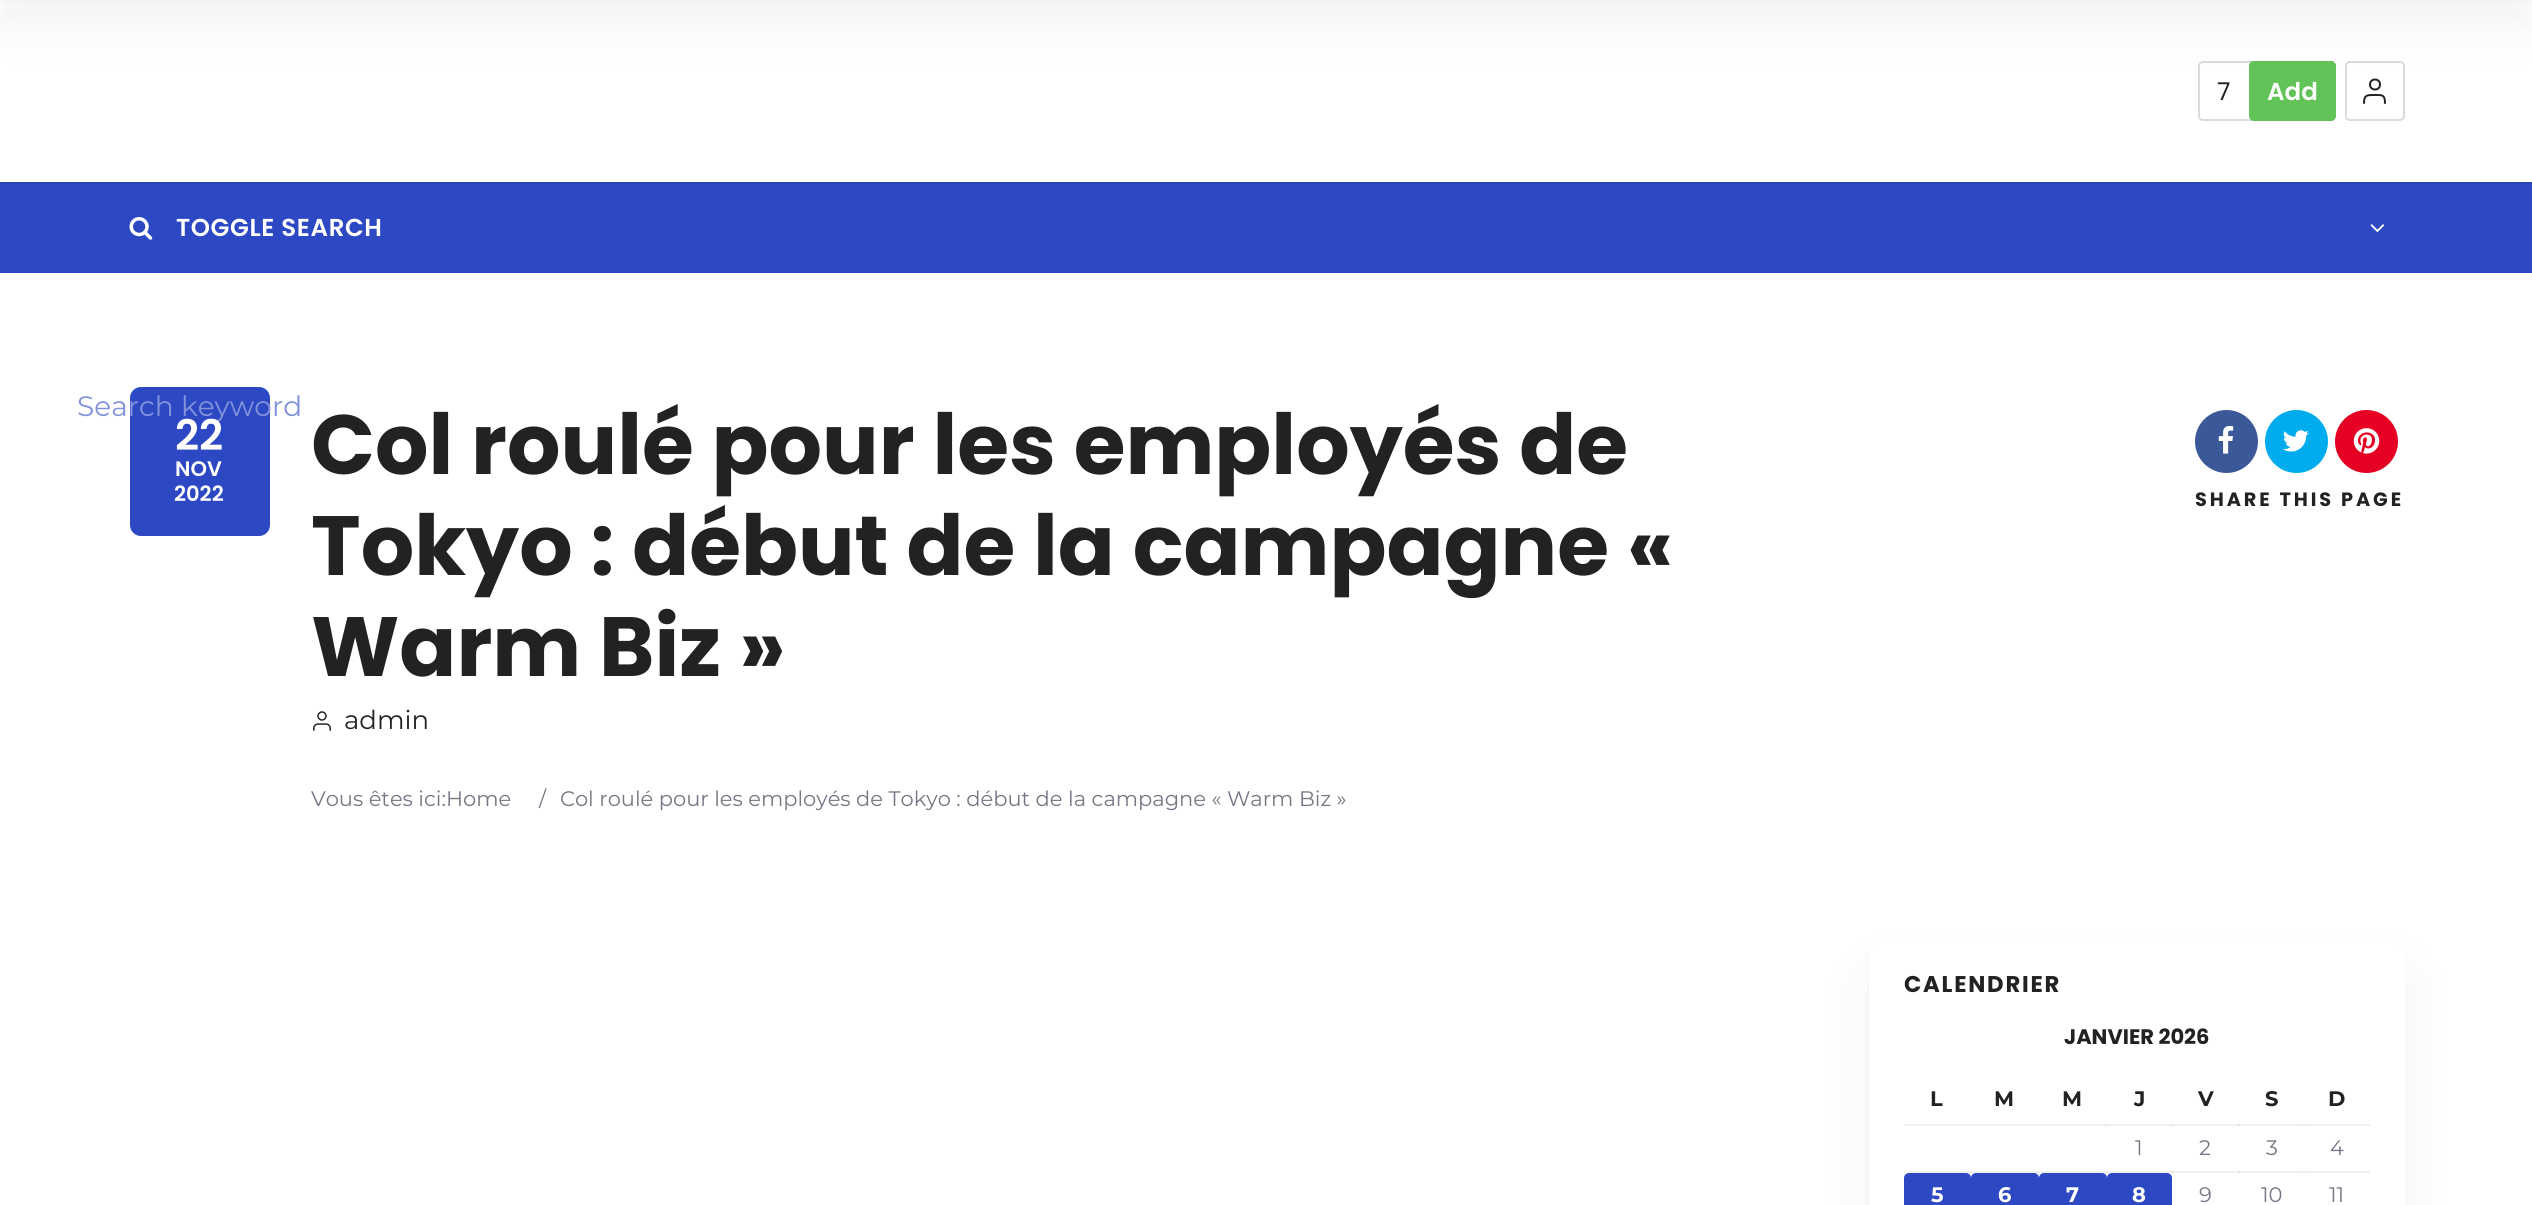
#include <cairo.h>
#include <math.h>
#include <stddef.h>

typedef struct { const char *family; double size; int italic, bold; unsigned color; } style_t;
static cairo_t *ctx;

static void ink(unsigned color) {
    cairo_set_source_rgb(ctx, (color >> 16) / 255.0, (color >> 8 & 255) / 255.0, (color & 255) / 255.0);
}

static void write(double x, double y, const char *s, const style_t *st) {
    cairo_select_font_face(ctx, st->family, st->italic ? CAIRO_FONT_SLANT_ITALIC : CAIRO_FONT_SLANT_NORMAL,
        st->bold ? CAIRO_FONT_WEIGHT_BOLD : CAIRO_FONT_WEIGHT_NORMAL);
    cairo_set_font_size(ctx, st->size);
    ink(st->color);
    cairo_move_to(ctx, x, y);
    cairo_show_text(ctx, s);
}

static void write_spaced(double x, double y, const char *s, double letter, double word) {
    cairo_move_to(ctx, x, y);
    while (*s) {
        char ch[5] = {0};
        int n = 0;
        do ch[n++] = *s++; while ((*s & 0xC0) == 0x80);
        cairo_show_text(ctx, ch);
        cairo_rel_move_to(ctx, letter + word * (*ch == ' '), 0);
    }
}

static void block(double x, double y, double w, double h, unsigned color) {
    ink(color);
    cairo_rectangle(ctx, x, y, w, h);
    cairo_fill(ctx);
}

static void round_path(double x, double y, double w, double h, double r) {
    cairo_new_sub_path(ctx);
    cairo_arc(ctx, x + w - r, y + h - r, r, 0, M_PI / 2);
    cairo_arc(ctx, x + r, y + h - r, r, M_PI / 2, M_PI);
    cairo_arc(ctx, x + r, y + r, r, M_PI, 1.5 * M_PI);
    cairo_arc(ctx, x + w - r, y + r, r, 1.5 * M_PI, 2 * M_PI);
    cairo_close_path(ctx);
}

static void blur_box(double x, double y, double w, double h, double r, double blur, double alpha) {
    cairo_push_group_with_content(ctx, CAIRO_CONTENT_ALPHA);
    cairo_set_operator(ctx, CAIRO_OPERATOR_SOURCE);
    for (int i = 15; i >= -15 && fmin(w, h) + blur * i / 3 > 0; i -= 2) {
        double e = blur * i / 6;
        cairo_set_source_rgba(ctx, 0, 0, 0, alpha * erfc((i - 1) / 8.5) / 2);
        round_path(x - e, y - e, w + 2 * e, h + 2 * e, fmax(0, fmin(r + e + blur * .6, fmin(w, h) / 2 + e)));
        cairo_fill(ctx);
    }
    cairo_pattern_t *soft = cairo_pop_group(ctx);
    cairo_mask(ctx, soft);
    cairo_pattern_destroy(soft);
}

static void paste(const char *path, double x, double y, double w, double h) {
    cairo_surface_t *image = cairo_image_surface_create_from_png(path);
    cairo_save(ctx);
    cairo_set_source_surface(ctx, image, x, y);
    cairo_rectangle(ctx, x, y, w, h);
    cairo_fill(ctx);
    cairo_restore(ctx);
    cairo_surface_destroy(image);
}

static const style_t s1 = {"Poppins", 24.5, 0, 0, 0x222222};
static const style_t s2 = {"Poppins SemiBold", 24.5, 0, 0, 0xffffff};
static const style_t s3 = {"Montserrat", 28, 0, 0, 0x8292db};
static const style_t s4 = {"Poppins SemiBold", 42, 0, 0, 0xffffff};
static const style_t s5 = {"Poppins SemiBold", 21, 0, 0, 0xffffff};
static const style_t s6 = {"Poppins", 84, 0, 1, 0x222222};
static const style_t s7 = {"Montserrat", 26, 0, 0, 0x222222};
static const style_t s8 = {"Montserrat", 21, 0, 0, 0x767685};
static const style_t s9 = {"Poppins", 21, 0, 1, 0x222222};
static const style_t s10 = {"Montserrat", 21, 0, 1, 0x222222};
static const style_t s11 = {"Montserrat", 21, 0, 1, 0xffffff};

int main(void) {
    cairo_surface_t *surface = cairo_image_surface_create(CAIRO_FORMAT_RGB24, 2532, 1205);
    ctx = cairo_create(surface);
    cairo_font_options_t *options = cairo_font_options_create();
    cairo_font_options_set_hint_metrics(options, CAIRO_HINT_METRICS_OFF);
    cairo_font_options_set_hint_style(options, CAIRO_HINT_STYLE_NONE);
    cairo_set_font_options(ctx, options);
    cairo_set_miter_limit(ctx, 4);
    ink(0xffffff);
    cairo_paint(ctx);
    block(0, 0, 2532, 2, 0xfcfcfc);
    round_path(2199, 62, 136, 58, 4);
    ink(0xdbdbdb);
    cairo_stroke(ctx);
    ink(0x62c358);
    round_path(2249, 61, 87, 60, 5);
    cairo_fill(ctx);
    round_path(2346, 62, 58, 58, 4);
    ink(0xdbdbdb);
    cairo_stroke(ctx);
    cairo_arc(ctx, 2375, 84.5, 5, 0, 2 * M_PI);
    ink(0x222222);
    cairo_stroke(ctx);
    cairo_new_path(ctx);
    cairo_move_to(ctx, 2385, 103);
    cairo_curve_to(ctx, 2385, 94.5, 2382, 95, 2375, 95);
    cairo_curve_to(ctx, 2367.5, 95, 2364, 94.5, 2364, 103);
    cairo_set_line_cap(ctx, CAIRO_LINE_CAP_ROUND);
    cairo_set_line_join(ctx, CAIRO_LINE_JOIN_ROUND);
    cairo_stroke(ctx);
    ink(0x000000);
    blur_box(0, -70, 2532, 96, 0, 26, 0.05);
    block(0, 182, 2532, 2, 0x2b44b9);
    write(2217, 100, "7", &s1);
    write(2267, 100, "Add", &s2);
    block(0, 184, 2532, 89, 0x2d48c3);
    paste("pic1.png", 129, 217, 24, 23);
    ink(0xffffff);
    write_spaced(176, 236, "TOGGLE SEARCH", 0.6, 0);
    paste("pic2.png", 2370, 224, 15, 9);
    ink(0x2d48c3);
    round_path(130, 387, 140, 149, 11);
    cairo_fill(ctx);
    write(77, 416, "Search keyword", &s3);
    write(175, 450, "22", &s4);
    write(175, 476, "NOV", &s5);
    write(174, 501, "2022", &s5);
    write(311, 474, "Col roulé pour les employés de", &s6);
    write(311, 575, "Tokyo : début de la campagne «", &s6);
    write(311, 676, "Warm Biz »", &s6);
    paste("pic3.png", 313, 711, 18, 20);
    write(344, 729, "admin", &s7);
    write(311, 806, "Vous êtes ici:Home", &s8);
    write(539, 806, "/", &s8);
    write(560, 806, "Col roulé pour les employés de Tokyo : début de la campagne « Warm Biz »", &s8);
    ink(0x3b5998);
    cairo_new_path(ctx);
    cairo_arc(ctx, 2226.5, 441.5, 31.5, 0, 2 * M_PI);
    cairo_fill(ctx);
    paste("pic4.png", 2218, 426, 16, 28);
    ink(0x00aced);
    cairo_arc(ctx, 2296.5, 441.5, 31.5, 0, 2 * M_PI);
    cairo_fill(ctx);
    paste("pic5.png", 2283, 430, 26, 22);
    ink(0xe60023);
    cairo_arc(ctx, 2366.5, 441.5, 31.5, 0, 2 * M_PI);
    cairo_fill(ctx);
    paste("pic6.png", 2353, 428, 27, 26);
    cairo_select_font_face(ctx, "Poppins", CAIRO_FONT_SLANT_NORMAL, CAIRO_FONT_WEIGHT_BOLD);
    cairo_set_font_size(ctx, 19.25);
    ink(0x222222);
    write_spaced(2195, 506, "SHARE THIS PAGE", 2.9, 0);
    round_path(1868, 943, 537, 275, 11);
    ink(0xfcfcfc);
    cairo_set_line_cap(ctx, CAIRO_LINE_CAP_BUTT);
    cairo_set_line_join(ctx, CAIRO_LINE_JOIN_MITER);
    cairo_stroke(ctx);
    ink(0x000000);
    blur_box(1869, 970, 536, 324, 11, 26, 0.05);
    ink(0xffffff);
    round_path(1869, 943, 536, 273, 11);
    cairo_fill(ctx);
    block(1904, 1124, 466, 2, 0xf0f0f0);
    block(2105, 1124, 2, 2, 0xe2e2e2);
    block(2172, 1124, 2, 2, 0xe2e2e2);
    block(2238, 1124, 2, 2, 0xe2e2e2);
    block(1904, 1171, 466, 2, 0xf0f0f0);
    block(1969, 1171, 2, 2, 0xe2e2e2);
    block(2037, 1171, 2, 2, 0xe2e2e2);
    block(2105, 1171, 2, 2, 0xe2e2e2);
    block(2172, 1171, 2, 2, 0xe2e2e2);
    block(2238, 1171, 2, 2, 0xe2e2e2);
    cairo_set_font_size(ctx, 22.75);
    ink(0x222222);
    write_spaced(1904, 992, "CALENDRIER", 1.75, 0);
    write(2064, 1044, "JANVIER 2026", &s9);
    write(1930, 1106, "L", &s10);
    write(1994, 1106, "M", &s10);
    write(2062, 1106, "M", &s10);
    write(2134, 1106, "J", &s10);
    write(2198, 1106, "V", &s10);
    write(2265, 1106, "S", &s10);
    write(2328, 1106, "D", &s10);
    write(2135, 1155, "1", &s8);
    write(2199, 1155, "2", &s8);
    write(2266, 1155, "3", &s8);
    block(2303, 1124, 2, 2, 0xe2e2e2);
    write(2330, 1155, "4", &s8);
    ink(0x2d48c3);
    round_path(1904, 1173, 67, 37, 5);
    cairo_fill(ctx);
    write(1931, 1202, "5", &s11);
    ink(0x2d48c3);
    round_path(1971, 1173, 68, 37, 5);
    cairo_fill(ctx);
    write(1998, 1202, "6", &s11);
    ink(0x2d48c3);
    round_path(2039, 1173, 68, 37, 5);
    cairo_fill(ctx);
    write(2066, 1202, "7", &s11);
    ink(0x2d48c3);
    round_path(2107, 1173, 65, 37, 5);
    cairo_fill(ctx);
    write(2132, 1202, "8", &s11);
    write(2199, 1202, "9", &s8);
    write(2261, 1202, "10", &s8);
    block(2303, 1171, 2, 2, 0xe2e2e2);
    write(2329, 1202, "11", &s8);
    cairo_surface_write_to_png(surface, "screenshot.png");
    cairo_font_options_destroy(options);
    cairo_destroy(ctx);
    cairo_surface_destroy(surface);
    return 0;
}
